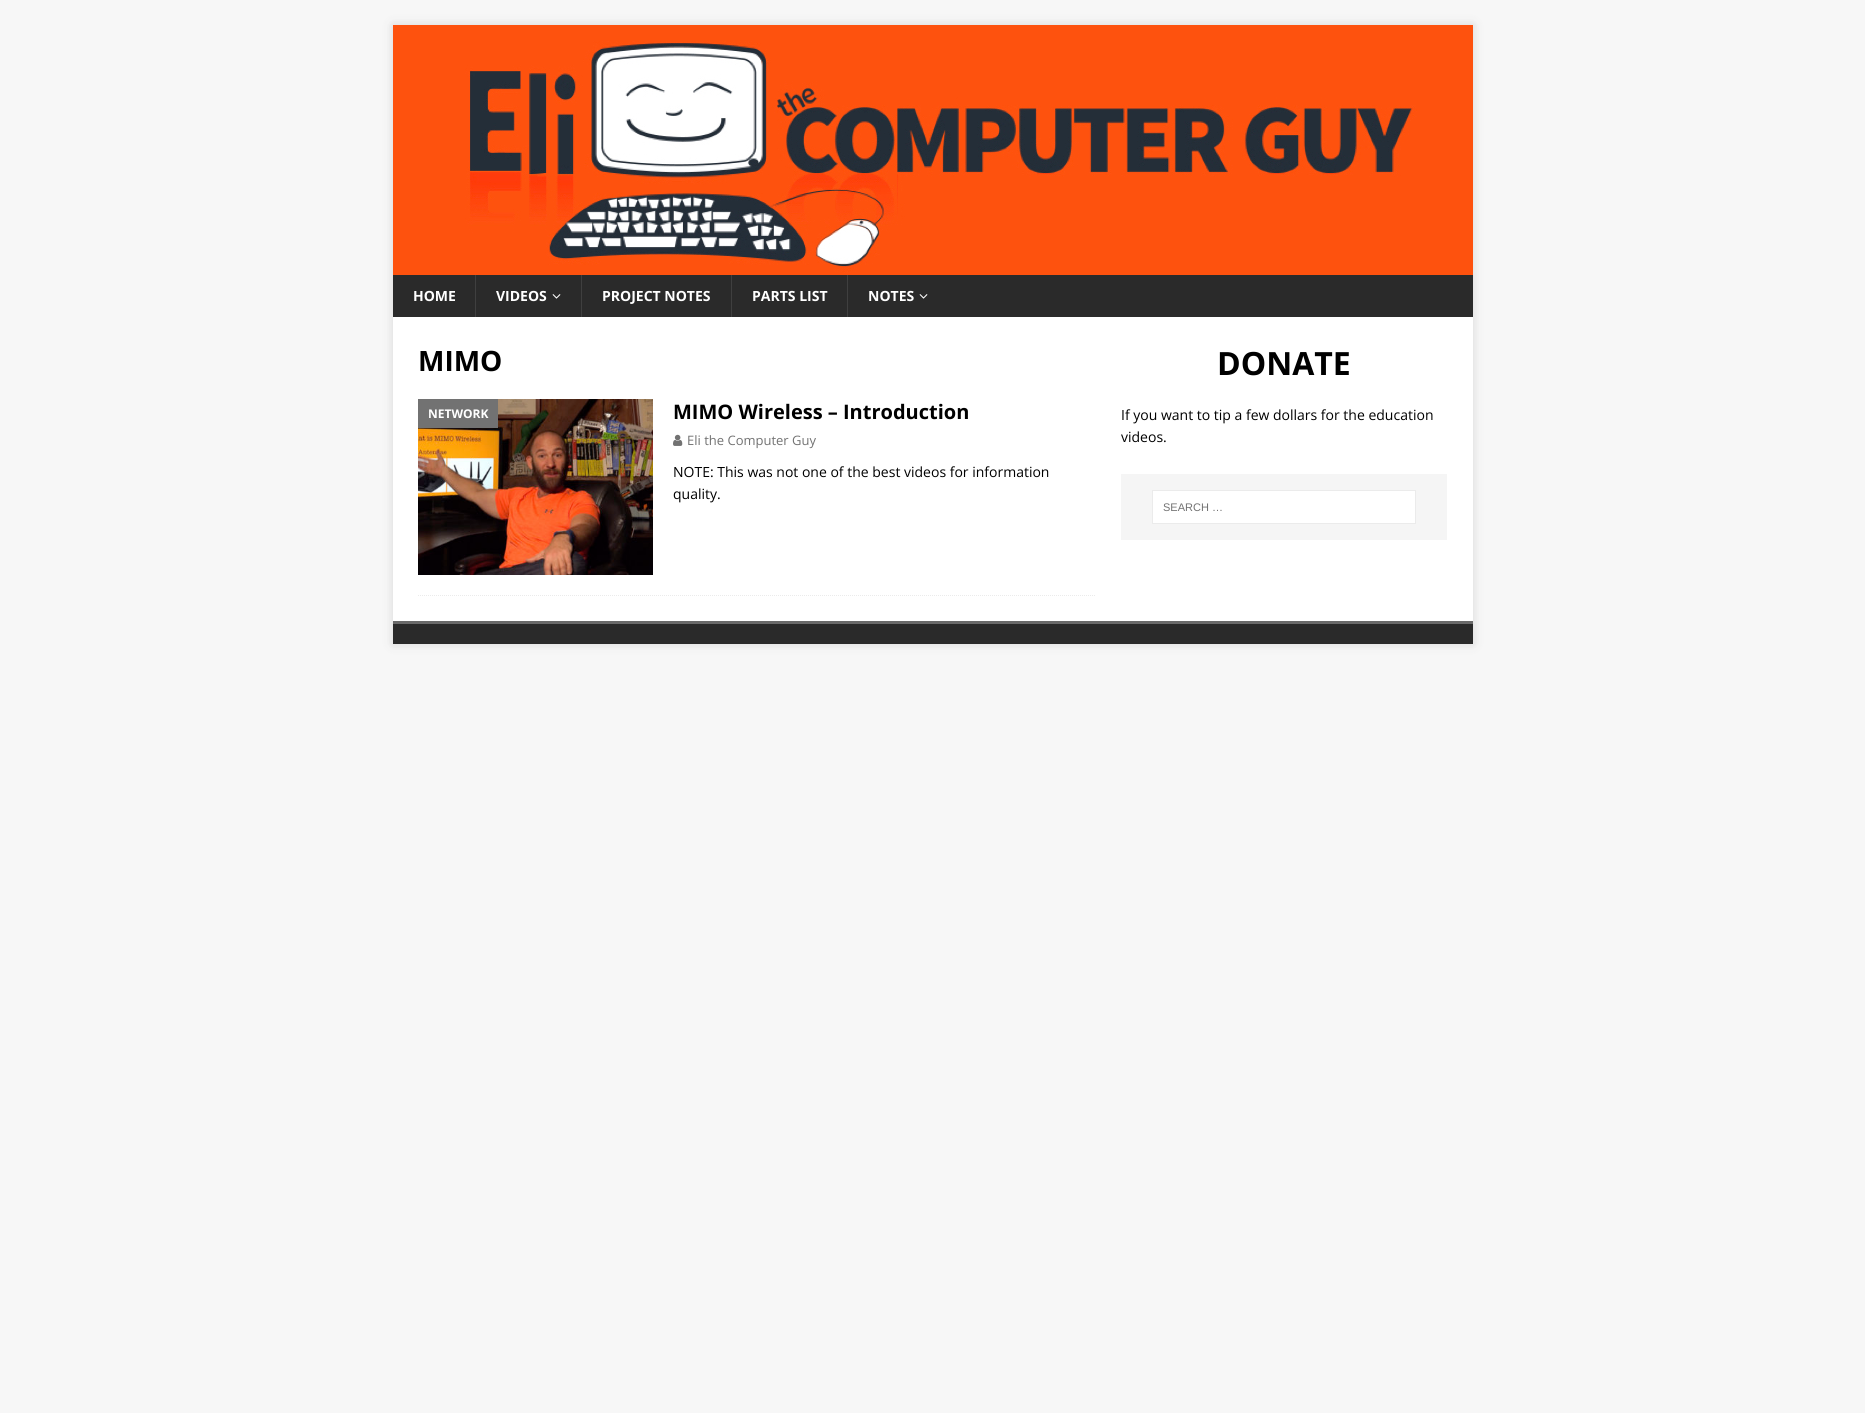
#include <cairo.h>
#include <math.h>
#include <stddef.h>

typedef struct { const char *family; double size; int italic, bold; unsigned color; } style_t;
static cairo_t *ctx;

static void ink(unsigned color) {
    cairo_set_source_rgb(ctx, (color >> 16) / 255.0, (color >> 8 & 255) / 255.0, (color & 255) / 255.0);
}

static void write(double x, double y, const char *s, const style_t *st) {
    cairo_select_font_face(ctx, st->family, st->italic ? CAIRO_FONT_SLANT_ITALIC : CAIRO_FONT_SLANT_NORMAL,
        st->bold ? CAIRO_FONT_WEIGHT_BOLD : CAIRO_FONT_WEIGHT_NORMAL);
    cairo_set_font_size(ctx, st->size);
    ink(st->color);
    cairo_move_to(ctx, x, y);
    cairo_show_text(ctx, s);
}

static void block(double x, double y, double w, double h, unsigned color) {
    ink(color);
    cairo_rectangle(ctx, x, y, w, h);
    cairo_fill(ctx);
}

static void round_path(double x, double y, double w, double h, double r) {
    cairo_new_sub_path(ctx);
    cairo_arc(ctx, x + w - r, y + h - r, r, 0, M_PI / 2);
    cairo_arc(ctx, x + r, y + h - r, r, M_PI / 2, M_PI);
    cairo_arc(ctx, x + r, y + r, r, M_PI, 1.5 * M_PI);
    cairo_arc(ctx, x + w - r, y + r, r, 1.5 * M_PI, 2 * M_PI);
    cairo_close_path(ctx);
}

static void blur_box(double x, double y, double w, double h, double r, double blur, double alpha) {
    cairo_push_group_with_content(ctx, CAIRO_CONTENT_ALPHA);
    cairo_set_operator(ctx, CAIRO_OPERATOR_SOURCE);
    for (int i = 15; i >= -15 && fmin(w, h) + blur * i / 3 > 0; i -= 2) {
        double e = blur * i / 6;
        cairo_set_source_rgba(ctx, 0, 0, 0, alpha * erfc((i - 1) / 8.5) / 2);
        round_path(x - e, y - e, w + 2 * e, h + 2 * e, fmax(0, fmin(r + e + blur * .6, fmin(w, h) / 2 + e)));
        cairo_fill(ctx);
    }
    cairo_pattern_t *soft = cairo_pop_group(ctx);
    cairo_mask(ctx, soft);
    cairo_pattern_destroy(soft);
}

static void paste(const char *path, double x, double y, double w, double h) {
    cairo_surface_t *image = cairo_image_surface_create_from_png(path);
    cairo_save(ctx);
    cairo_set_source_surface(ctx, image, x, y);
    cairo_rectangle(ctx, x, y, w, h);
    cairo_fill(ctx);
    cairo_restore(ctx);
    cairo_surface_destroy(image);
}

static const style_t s1 = {"Open Sans", 14, 0, 1, 0xffffff};
static const style_t s2 = {"Open Sans", 28, 0, 1, 0x000000};
static const style_t s3 = {"Open Sans", 12, 0, 1, 0xffffff};
static const style_t s4 = {"Open Sans", 20, 0, 1, 0x000000};
static const style_t s5 = {"Open Sans", 13, 0, 0, 0x727272};
static const style_t s6 = {"Open Sans", 14, 0, 0, 0x000000};
static const style_t s7 = {"Open Sans", 32, 0, 1, 0x000000};
static const style_t s8 = {"Liberation Sans", 11, 0, 0, 0x727272};

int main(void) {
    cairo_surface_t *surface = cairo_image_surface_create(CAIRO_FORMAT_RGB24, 1865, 1413);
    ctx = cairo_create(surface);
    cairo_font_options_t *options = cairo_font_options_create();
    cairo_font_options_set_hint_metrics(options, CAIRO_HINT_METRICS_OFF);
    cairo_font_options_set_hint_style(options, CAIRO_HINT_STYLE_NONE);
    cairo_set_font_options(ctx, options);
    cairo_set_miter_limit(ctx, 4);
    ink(0xf7f7f7);
    cairo_paint(ctx);
    ink(0x323232);
    blur_box(393, 25, 1080, 619, 0, 5, 0.17);
    paste("pic1.png", 393, 25, 1080, 250);
    block(393, 275, 1080, 42, 0x2a2a2a);
    write(413, 301, "HOME", &s1);
    block(475, 275, 1, 42, 0x3f3f3f);
    write(496, 301, "VIDEOS", &s1);
    paste("pic2.png", 552, 294, 9, 5);
    block(581, 275, 1, 42, 0x3f3f3f);
    write(602, 301, "PROJECT NOTES", &s1);
    block(731, 275, 1, 42, 0x3f3f3f);
    write(752, 301, "PARTS LIST", &s1);
    block(847, 275, 1, 42, 0x3f3f3f);
    write(868, 301, "NOTES", &s1);
    paste("pic2.png", 919, 294, 9, 5);
    block(393, 317, 1080, 304, 0xffffff);
    write(418, 371, "MIMO", &s2);
    cairo_new_path(ctx);
    cairo_move_to(ctx, 418, 595.5);
    cairo_line_to(ctx, 1096, 595.5);
    ink(0xebebeb);
    cairo_set_line_width(ctx, 1);
    cairo_set_dash(ctx, (double[]){1, 1}, 2, 0);
    cairo_stroke(ctx);
    paste("pic3.png", 418, 399, 235, 176);
    block(418, 399, 80, 29, 0x727272);
    write(428, 418, "NETWORK", &s3);
    write(673, 419, "MIMO Wireless – Introduction", &s4);
    paste("pic4.png", 673, 434, 10, 12);
    write(687, 445, "Eli the Computer Guy", &s5);
    write(673, 477, "NOTE: This was not one of the best videos for information", &s6);
    write(673, 499, "quality.", &s6);
    write(1217, 375, "DONATE", &s7);
    write(1121, 420, "If you want to tip a few dollars for the education", &s6);
    write(1121, 442, "videos.", &s6);
    block(1121, 474, 326, 66, 0xf5f5f5);
    ink(0xffffff);
    cairo_rectangle(ctx, 1152.5, 490.5, 263, 33);
    cairo_fill_preserve(ctx);
    ink(0xebebeb);
    cairo_set_dash(ctx, NULL, 0, 0);
    cairo_stroke(ctx);
    write(1163, 511, "SEARCH …", &s8);
    block(393, 624, 1080, 20, 0x2a2a2a);
    block(393, 621, 1080, 3, 0x6a6a6a);
    cairo_surface_write_to_png(surface, "screenshot.png");
    cairo_font_options_destroy(options);
    cairo_destroy(ctx);
    cairo_surface_destroy(surface);
    return 0;
}
